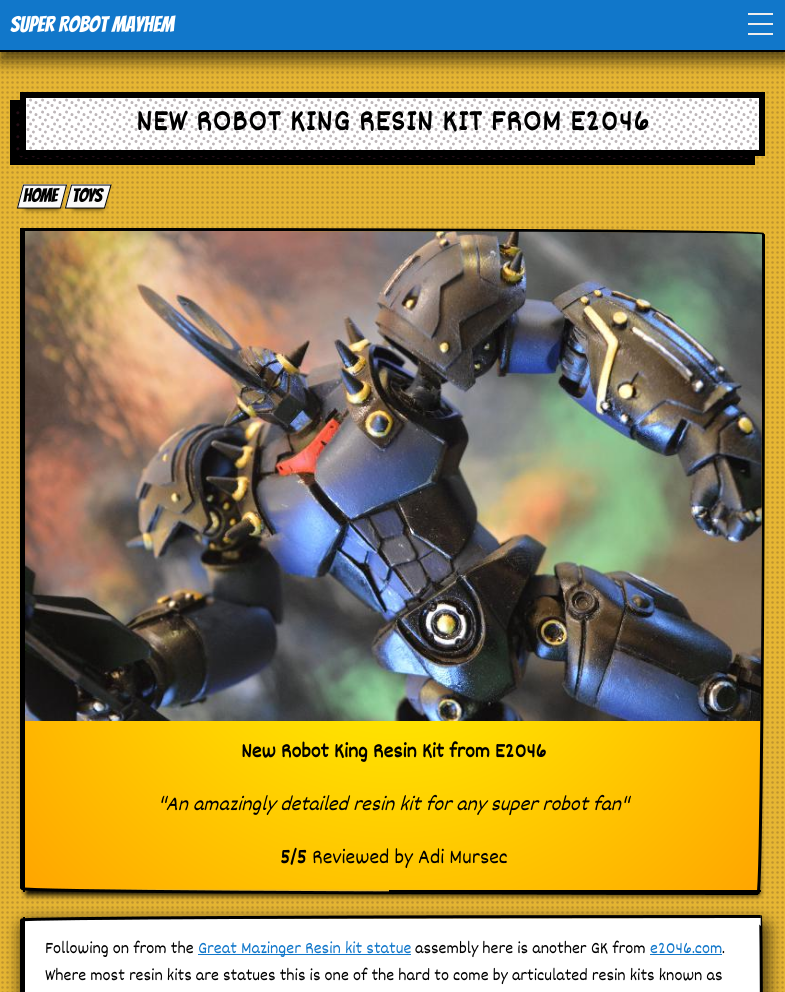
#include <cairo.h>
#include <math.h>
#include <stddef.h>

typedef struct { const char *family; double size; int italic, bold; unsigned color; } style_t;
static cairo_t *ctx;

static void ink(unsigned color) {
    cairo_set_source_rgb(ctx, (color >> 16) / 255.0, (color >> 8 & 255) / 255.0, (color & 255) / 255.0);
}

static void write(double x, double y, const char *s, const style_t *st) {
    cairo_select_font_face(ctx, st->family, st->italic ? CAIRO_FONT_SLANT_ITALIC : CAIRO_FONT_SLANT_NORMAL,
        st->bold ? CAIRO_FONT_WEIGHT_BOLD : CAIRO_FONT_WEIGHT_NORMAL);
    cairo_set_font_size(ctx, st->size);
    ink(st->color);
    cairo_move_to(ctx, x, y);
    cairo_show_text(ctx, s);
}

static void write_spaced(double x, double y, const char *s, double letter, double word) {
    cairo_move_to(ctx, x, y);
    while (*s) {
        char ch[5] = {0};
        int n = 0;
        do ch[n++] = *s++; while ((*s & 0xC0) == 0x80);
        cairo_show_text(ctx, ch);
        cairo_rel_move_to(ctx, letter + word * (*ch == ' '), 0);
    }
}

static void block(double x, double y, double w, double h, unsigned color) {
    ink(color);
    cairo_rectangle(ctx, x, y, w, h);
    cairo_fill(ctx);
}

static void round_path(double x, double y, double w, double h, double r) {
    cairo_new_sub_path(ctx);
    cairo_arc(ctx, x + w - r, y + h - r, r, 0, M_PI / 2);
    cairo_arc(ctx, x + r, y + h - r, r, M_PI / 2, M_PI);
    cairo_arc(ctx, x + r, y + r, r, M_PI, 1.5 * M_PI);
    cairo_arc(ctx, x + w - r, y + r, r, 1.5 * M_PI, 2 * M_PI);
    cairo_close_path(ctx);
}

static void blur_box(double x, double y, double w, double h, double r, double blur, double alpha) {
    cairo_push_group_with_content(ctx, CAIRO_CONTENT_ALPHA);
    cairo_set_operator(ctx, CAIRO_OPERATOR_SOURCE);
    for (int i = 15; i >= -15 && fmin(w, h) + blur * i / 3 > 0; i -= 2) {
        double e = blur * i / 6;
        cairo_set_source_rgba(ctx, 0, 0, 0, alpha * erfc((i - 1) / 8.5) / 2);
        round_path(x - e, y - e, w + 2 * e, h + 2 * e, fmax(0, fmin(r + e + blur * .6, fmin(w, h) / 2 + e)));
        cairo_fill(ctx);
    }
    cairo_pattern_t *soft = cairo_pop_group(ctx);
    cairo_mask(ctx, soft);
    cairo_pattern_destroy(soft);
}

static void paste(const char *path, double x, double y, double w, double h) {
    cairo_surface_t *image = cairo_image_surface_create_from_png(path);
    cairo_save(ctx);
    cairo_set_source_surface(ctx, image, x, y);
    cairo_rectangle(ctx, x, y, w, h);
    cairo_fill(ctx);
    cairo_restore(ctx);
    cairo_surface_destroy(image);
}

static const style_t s1 = {"Bangers", 22, 0, 0, 0xffffff};
static const style_t s2 = {"Dekko", 22, 0, 1, 0x000000};
static const style_t s3 = {"Dekko", 22, 1, 0, 0x000000};
static const style_t s4 = {"Dekko", 22, 0, 0, 0x000000};
static const style_t s5 = {"Dekko", 18, 0, 0, 0x000000};
static const style_t s6 = {"Dekko", 18, 0, 0, 0x1177ca};

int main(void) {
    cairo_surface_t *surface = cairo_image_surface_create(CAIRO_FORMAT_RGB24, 785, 992);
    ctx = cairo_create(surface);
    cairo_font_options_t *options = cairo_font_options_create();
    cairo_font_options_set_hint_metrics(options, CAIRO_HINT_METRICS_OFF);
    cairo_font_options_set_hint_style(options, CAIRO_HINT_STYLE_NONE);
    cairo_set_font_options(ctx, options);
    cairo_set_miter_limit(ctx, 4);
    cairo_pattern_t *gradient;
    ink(0xe6b633);
    cairo_paint(ctx);
    paste("pic1.png", 1, 52, 783, 940);
    ink(0x000000);
    blur_box(0, 5, 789, 56, 0, 7.5, 0.62);
    block(0, 0, 785, 50, 0x1177ca);
    block(0, 50, 785, 2, 0x000000);
    write(10, 32, "Super Robot Mayhem", &s1);
    block(748, 13, 25, 2, 0xeeeeee);
    block(748, 23, 25, 2, 0xeeeeee);
    block(748, 33, 25, 2, 0xeeeeee);
    block(16, 106, 733, 53, 0x000000);
    paste("pic3.png", 16, 107, 732, 52);
    cairo_rectangle(ctx, 13, 103, 739, 59);
    cairo_set_line_width(ctx, 6);
    cairo_stroke(ctx);
    block(26, 98, 733, 52, 0xffffff);
    paste("pic2.png", 26, 98, 733, 52);
    cairo_rectangle(ctx, 23, 95, 739, 58);
    ink(0x000000);
    cairo_stroke(ctx);
    cairo_select_font_face(ctx, "Dekko", CAIRO_FONT_SLANT_NORMAL, CAIRO_FONT_WEIGHT_BOLD);
    cairo_set_font_size(ctx, 32);
    write_spaced(136, 130, "NEW ROBOT KING RESIN KIT FROM E2046", 1, 0);
    ink(0x000000);
    blur_box(26, 196, 32, 12, 0, 3, 1);
    ink(0xf9f9f9);
    cairo_new_path(ctx);
    cairo_move_to(ctx, 23, 184);
    cairo_line_to(ctx, 67, 184);
    cairo_line_to(ctx, 61, 208);
    cairo_line_to(ctx, 17, 208);
    cairo_close_path(ctx);
    cairo_fill(ctx);
    cairo_new_path(ctx);
    cairo_move_to(ctx, 23.5, 185);
    cairo_line_to(ctx, 66.5, 185);
    cairo_line_to(ctx, 60.5, 208);
    cairo_line_to(ctx, 17.5, 208);
    cairo_close_path(ctx);
    ink(0x000000);
    cairo_set_line_width(ctx, 1);
    cairo_stroke(ctx);
    cairo_select_font_face(ctx, "Bangers", CAIRO_FONT_SLANT_NORMAL, CAIRO_FONT_WEIGHT_NORMAL);
    cairo_set_font_size(ctx, 19);
    write_spaced(23, 202, "Home", -0.5, 0);
    ink(0x000000);
    blur_box(74, 196, 28, 12, 0, 3, 1);
    ink(0xf9f9f9);
    cairo_new_path(ctx);
    cairo_move_to(ctx, 71, 184);
    cairo_line_to(ctx, 111, 184);
    cairo_line_to(ctx, 105, 208);
    cairo_line_to(ctx, 65, 208);
    cairo_close_path(ctx);
    cairo_fill(ctx);
    cairo_new_path(ctx);
    cairo_move_to(ctx, 71.5, 185);
    cairo_line_to(ctx, 111, 185);
    cairo_line_to(ctx, 104.5, 208);
    cairo_line_to(ctx, 65.5, 208);
    cairo_close_path(ctx);
    ink(0x000000);
    cairo_stroke(ctx);
    write_spaced(72, 202, "toys", -0.5, 0);
    cairo_save(ctx);
    cairo_set_fill_rule(ctx, CAIRO_FILL_RULE_EVEN_ODD);
    cairo_new_path(ctx);
    cairo_move_to(ctx, 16, 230);
    cairo_line_to(ctx, 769, 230);
    cairo_line_to(ctx, 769, 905);
    cairo_line_to(ctx, 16, 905);
    cairo_close_path(ctx);
    cairo_move_to(ctx, 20, 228);
    cairo_line_to(ctx, 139.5, 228);
    cairo_curve_to(ctx, 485, 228, 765, 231, 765, 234.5);
    cairo_line_to(ctx, 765, 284.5);
    cairo_curve_to(ctx, 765, 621.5, 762, 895, 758, 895);
    cairo_curve_to(ctx, 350.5, 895, 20, 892, 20, 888.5);
    cairo_close_path(ctx);
    cairo_clip(ctx);
    ink(0x000000);
    blur_box(26, 240, 733, 655, 1, 3, 1);
    cairo_restore(ctx);
    gradient = cairo_pattern_create_radial(394, 561, 0, 394, 561, 494);
    cairo_pattern_add_color_stop_rgba(gradient, 0, 1, 1, 0, 1);
    cairo_pattern_add_color_stop_rgba(gradient, 1, 1, 0.647, 0, 1);
    cairo_set_source(ctx, gradient);
    cairo_pattern_destroy(gradient);
    cairo_new_path(ctx);
    cairo_move_to(ctx, 25, 231);
    cairo_line_to(ctx, 139, 231);
    cairo_curve_to(ctx, 483, 231, 762, 232, 762, 234);
    cairo_line_to(ctx, 762, 285);
    cairo_curve_to(ctx, 762, 619, 760, 890, 758, 890);
    cairo_curve_to(ctx, 353, 890, 25, 889, 25, 889);
    cairo_close_path(ctx);
    cairo_fill(ctx);
    cairo_new_path(ctx);
    cairo_move_to(ctx, 21.5, 229.5);
    cairo_line_to(ctx, 139.5, 229.5);
    cairo_curve_to(ctx, 484, 229.5, 763.5, 231.5, 763.5, 234.5);
    cairo_line_to(ctx, 763.5, 284.5);
    cairo_curve_to(ctx, 763.5, 621, 761, 893.5, 758, 893.5);
    cairo_curve_to(ctx, 351, 893.5, 21.5, 891.5, 21.5, 888.5);
    cairo_close_path(ctx);
    ink(0x000000);
    cairo_set_line_width(ctx, 3);
    cairo_stroke(ctx);
    block(389, 890, 372, 2, 0x000000);
    block(23, 228, 2, 664, 0x000000);
    paste("pic4.png", 25, 231, 737, 490);
    write(241, 757, "New Robot King Resin Kit from E2046", &s2);
    write(158, 810, "\"An amazingly detailed resin kit for any super robot fan\"", &s3);
    write(280, 863, "5/5", &s2);
    write(312, 863, "Reviewed by Adi Mursec", &s4);
    ink(0x000000);
    blur_box(20, 920, 749, 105, 10, 7.5, 0.62);
    ink(0xffffff);
    cairo_new_path(ctx);
    cairo_move_to(ctx, 750, 918);
    cairo_line_to(ctx, 761, 918);
    cairo_line_to(ctx, 761, 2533);
    cairo_curve_to(ctx, 761, 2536, 459, 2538, 87, 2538);
    cairo_line_to(ctx, 25, 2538);
    cairo_line_to(ctx, 25, 920);
    cairo_line_to(ctx, 149, 919);
    cairo_close_path(ctx);
    cairo_fill(ctx);
    cairo_new_path(ctx);
    cairo_move_to(ctx, 750, 916.5);
    cairo_line_to(ctx, 760.5, 916.5);
    cairo_curve_to(ctx, 762, 916.5, 763.5, 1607.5, 763.5, 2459.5);
    cairo_line_to(ctx, 763.5, 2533);
    cairo_curve_to(ctx, 763.5, 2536.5, 460.5, 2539.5, 87, 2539.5);
    cairo_line_to(ctx, 23.5, 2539.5);
    cairo_curve_to(ctx, 22.5, 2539.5, 21.5, 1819.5, 21.5, 931.5);
    cairo_line_to(ctx, 21.5, 920);
    cairo_curve_to(ctx, 21.5, 918, 347.5, 916.5, 750, 916.5);
    cairo_close_path(ctx);
    ink(0x000000);
    cairo_stroke(ctx);
    block(23, 917, 2, 75, 0x000000);
    write(45, 953, "Following on from the", &s5);
    block(198, 954, 213, 1, 0x1177ca);
    write(198, 953, "Great Mazinger Resin kit statue", &s6);
    write(415, 953, "assembly here is another GK from", &s5);
    write(650, 953, "e2046.com", &s6);
    block(650, 954, 72, 1, 0x1177ca);
    write(722, 953, ".", &s5);
    write(45, 980, "Where most resin kits are statues this is one of the hard to come by articulated resin kits known as", &s5);
    cairo_surface_write_to_png(surface, "screenshot.png");
    cairo_font_options_destroy(options);
    cairo_destroy(ctx);
    cairo_surface_destroy(surface);
    return 0;
}
